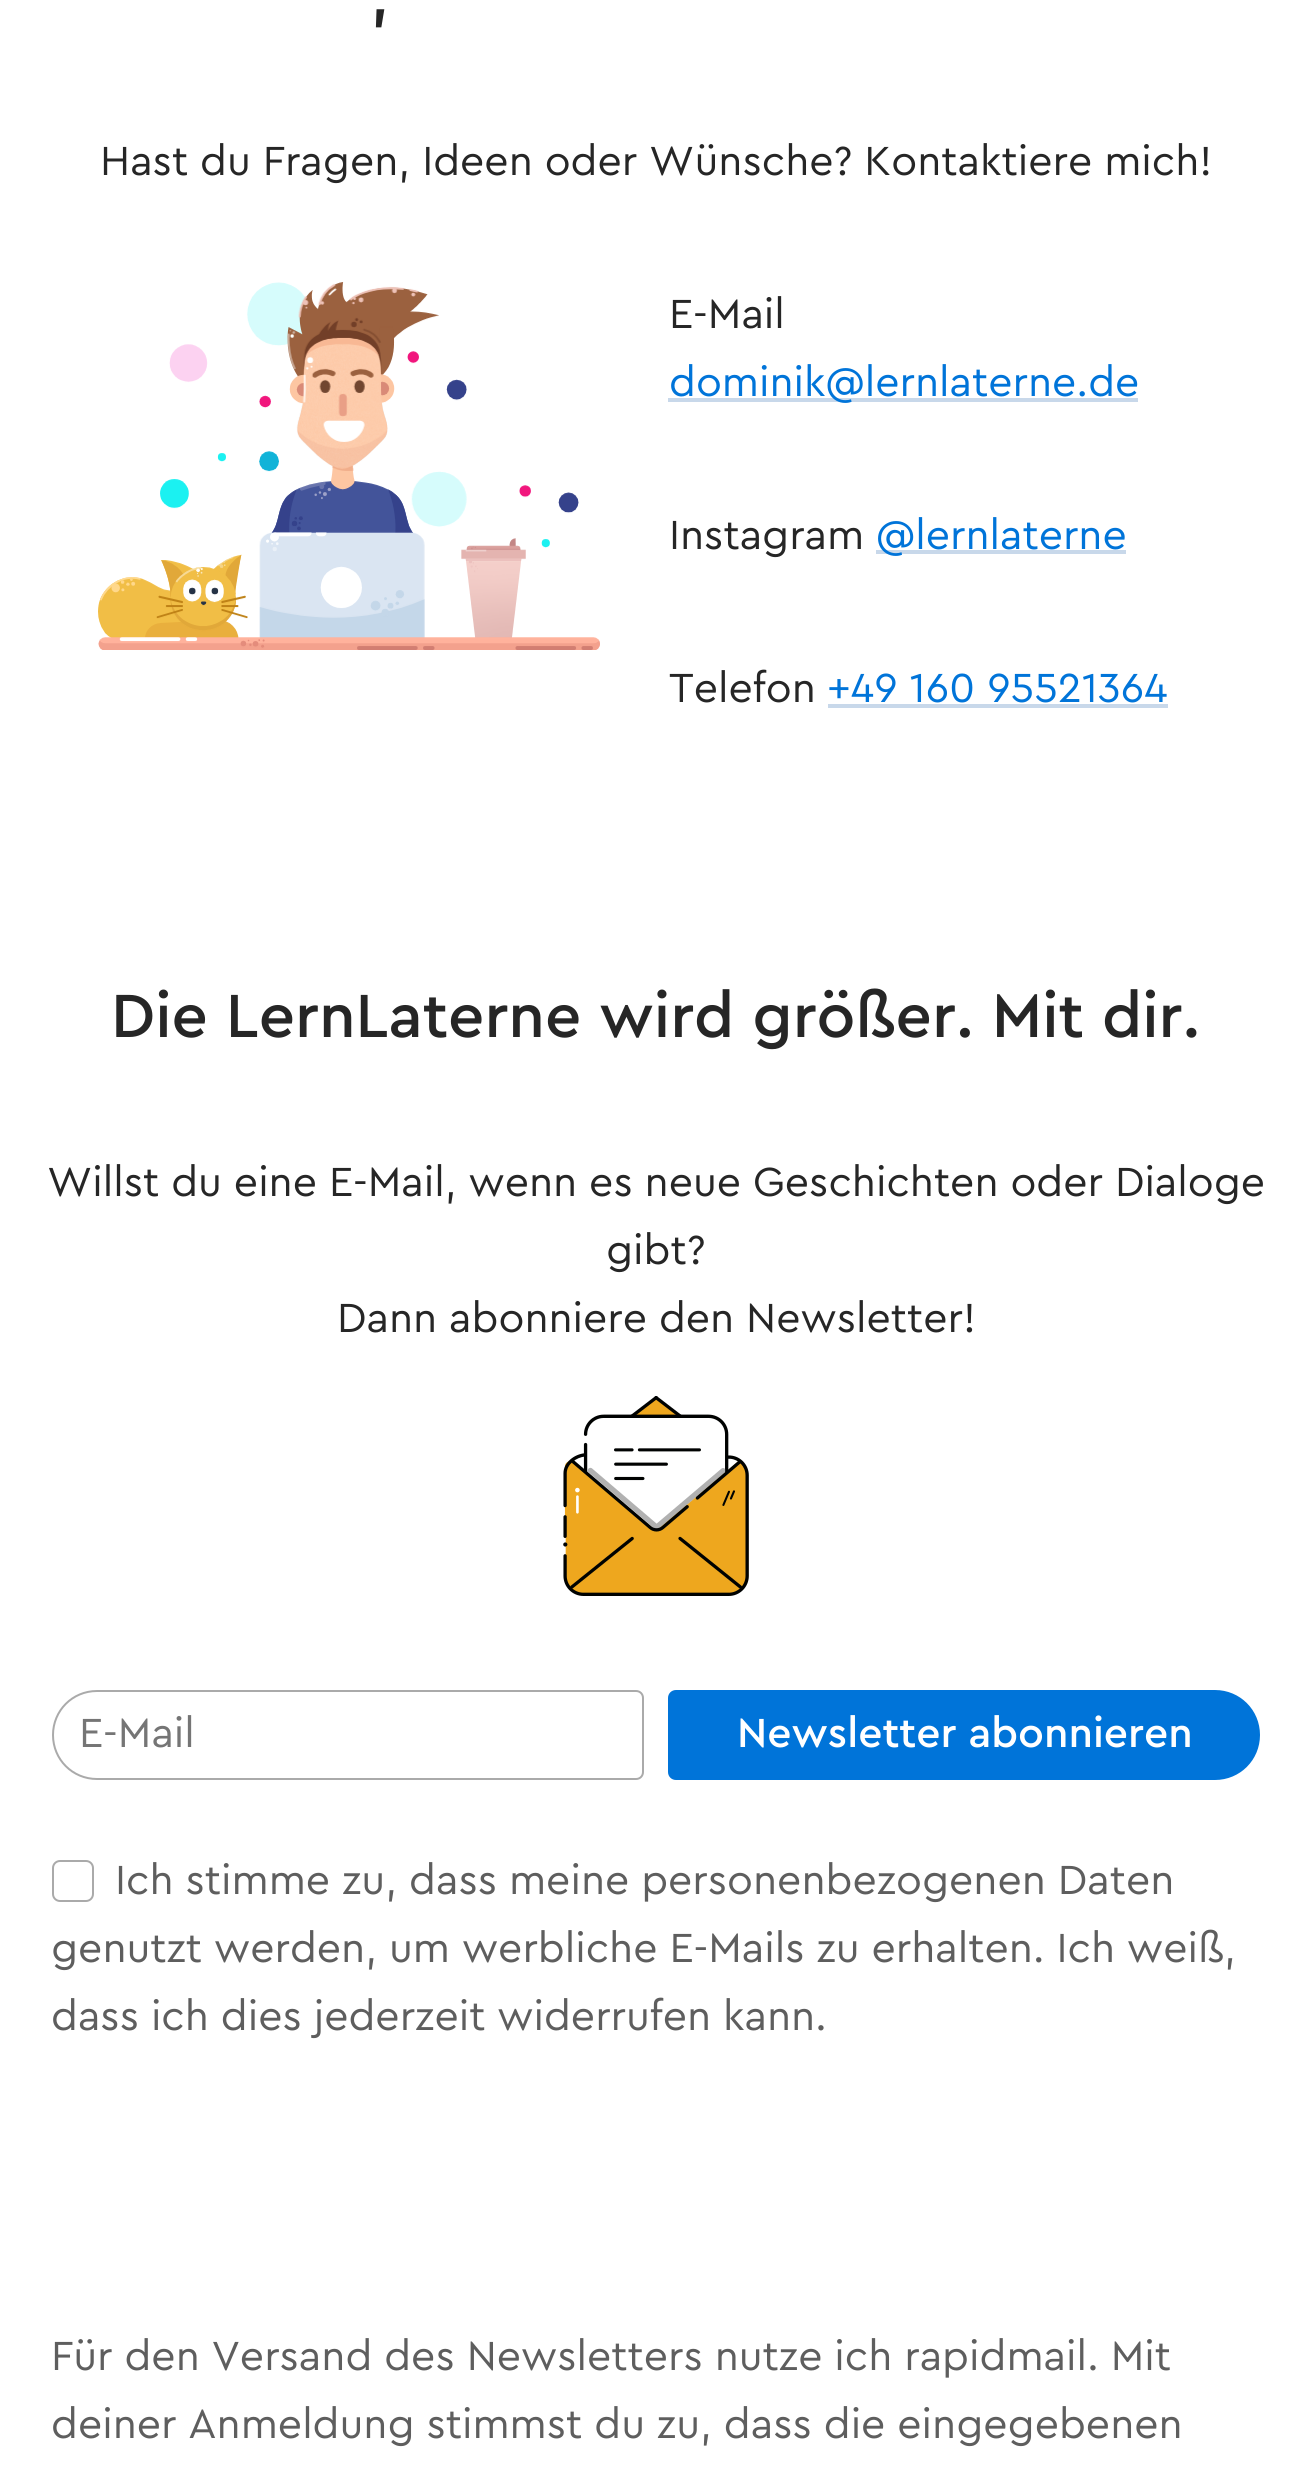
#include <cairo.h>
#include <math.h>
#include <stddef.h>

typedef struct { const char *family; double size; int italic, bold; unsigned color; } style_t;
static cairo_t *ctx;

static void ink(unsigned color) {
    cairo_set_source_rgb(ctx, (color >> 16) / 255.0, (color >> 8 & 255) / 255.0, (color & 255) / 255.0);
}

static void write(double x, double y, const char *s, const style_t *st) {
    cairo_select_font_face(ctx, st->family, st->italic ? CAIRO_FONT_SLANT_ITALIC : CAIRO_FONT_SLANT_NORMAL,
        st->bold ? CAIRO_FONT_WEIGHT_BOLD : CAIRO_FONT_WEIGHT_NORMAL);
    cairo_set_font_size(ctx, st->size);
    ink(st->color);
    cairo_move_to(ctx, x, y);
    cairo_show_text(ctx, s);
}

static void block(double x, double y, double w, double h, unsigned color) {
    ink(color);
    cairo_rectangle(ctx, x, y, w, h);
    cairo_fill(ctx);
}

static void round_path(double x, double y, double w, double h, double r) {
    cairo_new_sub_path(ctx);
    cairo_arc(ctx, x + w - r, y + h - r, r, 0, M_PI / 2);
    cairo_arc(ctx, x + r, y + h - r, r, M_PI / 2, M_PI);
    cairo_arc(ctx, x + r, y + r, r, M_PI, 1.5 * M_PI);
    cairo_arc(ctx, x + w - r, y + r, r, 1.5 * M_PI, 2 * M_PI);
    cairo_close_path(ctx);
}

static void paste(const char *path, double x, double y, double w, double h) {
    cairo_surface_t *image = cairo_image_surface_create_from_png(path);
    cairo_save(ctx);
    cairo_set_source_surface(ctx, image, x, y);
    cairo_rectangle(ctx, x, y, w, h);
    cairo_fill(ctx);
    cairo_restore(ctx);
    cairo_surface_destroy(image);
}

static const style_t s1 = {"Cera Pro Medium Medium", 63.8, 0, 0, 0x262626};
static const style_t s2 = {"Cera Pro", 42.55, 0, 0, 0x262626};
static const style_t s3 = {"Cera Pro", 42.55, 0, 0, 0x0074d9};
static const style_t s4 = {"Cera Pro", 42.55, 0, 0, 0x757575};
static const style_t s5 = {"Cera Pro Medium Medium", 42.55, 0, 0, 0xffffff};
static const style_t s6 = {"Cera Pro", 42.55, 0, 0, 0x5e5e5e};

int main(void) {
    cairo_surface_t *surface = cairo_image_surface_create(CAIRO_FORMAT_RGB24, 1312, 2472);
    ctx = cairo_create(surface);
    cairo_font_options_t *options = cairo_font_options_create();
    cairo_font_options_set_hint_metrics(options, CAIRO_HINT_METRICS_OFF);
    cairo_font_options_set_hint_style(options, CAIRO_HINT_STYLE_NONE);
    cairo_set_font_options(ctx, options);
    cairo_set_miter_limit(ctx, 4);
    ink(0xffffff);
    cairo_paint(ctx);
    write(371, 16, ",", &s1);
    write(100, 175, "Hast du Fragen, Ideen oder Wünsche? Kontaktiere mich!", &s2);
    paste("pic1.png", 98, 282, 502, 368);
    write(669, 328, "E-Mail", &s2);
    block(668, 398, 470, 4, 0xc8d8ea);
    write(669, 396, "dominik@lernlaterne.de", &s3);
    write(669, 549, "Instagram", &s2);
    block(876, 550, 250, 4, 0xc8d8ea);
    write(876, 549, "@lernlaterne", &s3);
    write(669, 702, "Telefon", &s2);
    write(827, 702, "+49 160 95521364", &s3);
    block(828, 704, 340, 4, 0xc8d8ea);
    write(111, 1037, "Die LernLaterne wird größer. Mit dir.", &s1);
    write(47, 1196, "Willst du eine E-Mail, wenn es neue Geschichten oder Dialoge", &s2);
    write(606, 1264, "gibt?", &s2);
    write(337, 1332, "Dann abonniere den Newsletter!", &s2);
    paste("pic2.png", 563, 1396, 186, 200);
    cairo_new_path(ctx);
    cairo_move_to(ctx, 97, 1691);
    cairo_line_to(ctx, 636, 1691);
    cairo_curve_to(ctx, 640, 1691, 643, 1694, 643, 1698);
    cairo_line_to(ctx, 643, 1772);
    cairo_curve_to(ctx, 643, 1776, 640, 1779, 636, 1779);
    cairo_line_to(ctx, 97, 1779);
    cairo_curve_to(ctx, 72.5, 1779, 53, 1759.5, 53, 1735);
    cairo_curve_to(ctx, 53, 1710.5, 72.5, 1691, 97, 1691);
    cairo_close_path(ctx);
    ink(0xaaaaaa);
    cairo_stroke(ctx);
    write(79, 1747, "E-Mail", &s4);
    ink(0x0074d9);
    cairo_new_path(ctx);
    cairo_move_to(ctx, 676, 1690);
    cairo_line_to(ctx, 1215, 1690);
    cairo_curve_to(ctx, 1240, 1690, 1260, 1710, 1260, 1735);
    cairo_curve_to(ctx, 1260, 1760, 1240, 1780, 1215, 1780);
    cairo_line_to(ctx, 676, 1780);
    cairo_curve_to(ctx, 671.5, 1780, 668, 1776.5, 668, 1772);
    cairo_line_to(ctx, 668, 1698);
    cairo_curve_to(ctx, 668, 1693.5, 671.5, 1690, 676, 1690);
    cairo_close_path(ctx);
    cairo_fill(ctx);
    write(737, 1747, "Newsletter abonnieren", &s5);
    round_path(53, 1861, 40, 40, 7);
    ink(0xaaaaaa);
    cairo_stroke(ctx);
    write(115, 1894, "Ich stimme zu, dass meine personenbezogenen Daten", &s6);
    write(51, 1962, "genutzt werden, um werbliche E-Mails zu erhalten. Ich weiß,", &s6);
    write(51, 2030, "dass ich dies jederzeit widerrufen kann.", &s6);
    write(51, 2370, "Für den Versand des Newsletters nutze ich rapidmail. Mit", &s6);
    write(51, 2438, "deiner Anmeldung stimmst du zu, dass die eingegebenen", &s6);
    cairo_surface_write_to_png(surface, "screenshot.png");
    cairo_font_options_destroy(options);
    cairo_destroy(ctx);
    cairo_surface_destroy(surface);
    return 0;
}
